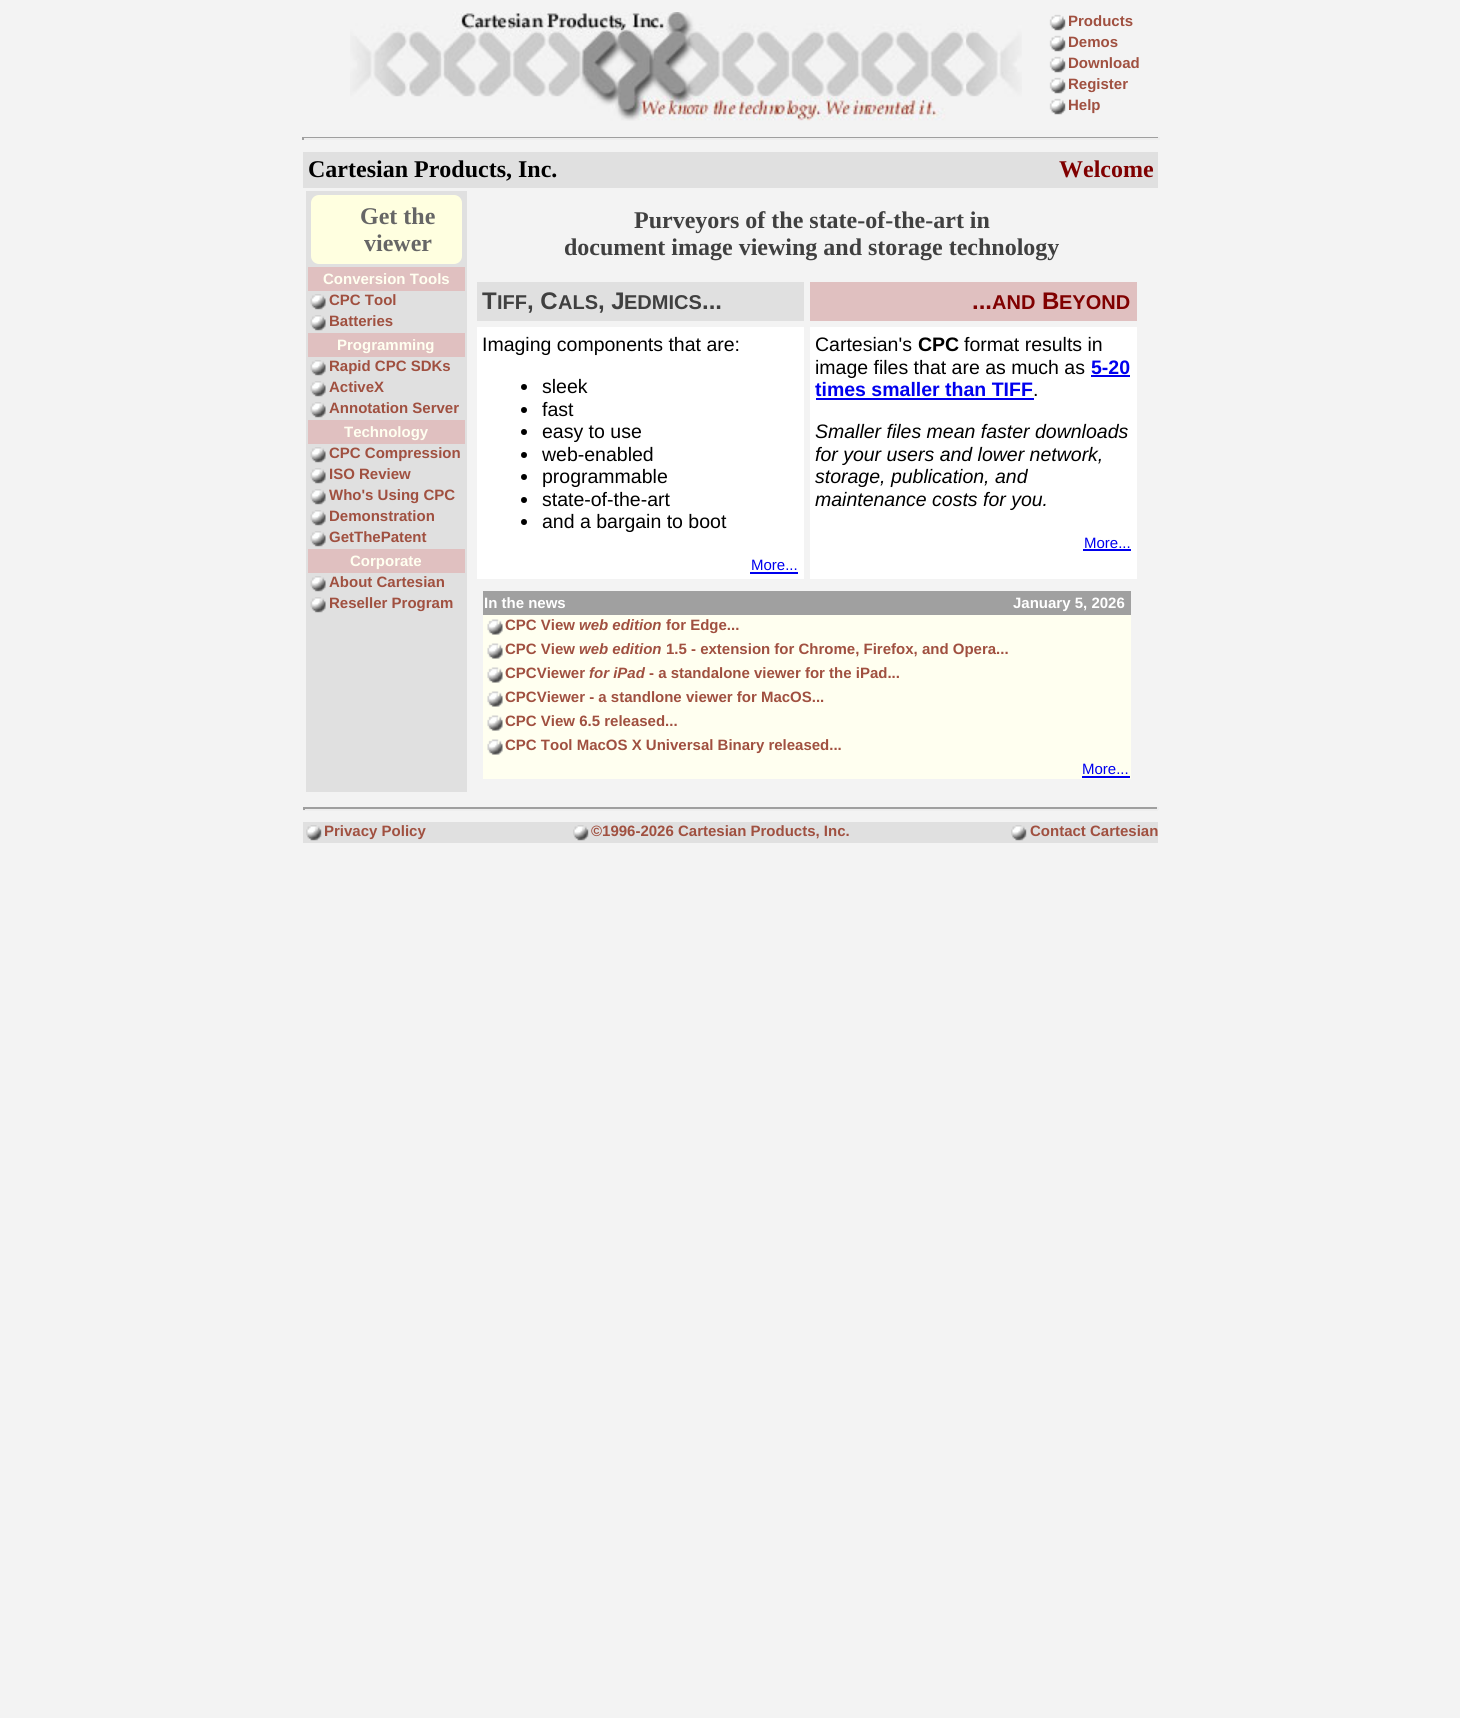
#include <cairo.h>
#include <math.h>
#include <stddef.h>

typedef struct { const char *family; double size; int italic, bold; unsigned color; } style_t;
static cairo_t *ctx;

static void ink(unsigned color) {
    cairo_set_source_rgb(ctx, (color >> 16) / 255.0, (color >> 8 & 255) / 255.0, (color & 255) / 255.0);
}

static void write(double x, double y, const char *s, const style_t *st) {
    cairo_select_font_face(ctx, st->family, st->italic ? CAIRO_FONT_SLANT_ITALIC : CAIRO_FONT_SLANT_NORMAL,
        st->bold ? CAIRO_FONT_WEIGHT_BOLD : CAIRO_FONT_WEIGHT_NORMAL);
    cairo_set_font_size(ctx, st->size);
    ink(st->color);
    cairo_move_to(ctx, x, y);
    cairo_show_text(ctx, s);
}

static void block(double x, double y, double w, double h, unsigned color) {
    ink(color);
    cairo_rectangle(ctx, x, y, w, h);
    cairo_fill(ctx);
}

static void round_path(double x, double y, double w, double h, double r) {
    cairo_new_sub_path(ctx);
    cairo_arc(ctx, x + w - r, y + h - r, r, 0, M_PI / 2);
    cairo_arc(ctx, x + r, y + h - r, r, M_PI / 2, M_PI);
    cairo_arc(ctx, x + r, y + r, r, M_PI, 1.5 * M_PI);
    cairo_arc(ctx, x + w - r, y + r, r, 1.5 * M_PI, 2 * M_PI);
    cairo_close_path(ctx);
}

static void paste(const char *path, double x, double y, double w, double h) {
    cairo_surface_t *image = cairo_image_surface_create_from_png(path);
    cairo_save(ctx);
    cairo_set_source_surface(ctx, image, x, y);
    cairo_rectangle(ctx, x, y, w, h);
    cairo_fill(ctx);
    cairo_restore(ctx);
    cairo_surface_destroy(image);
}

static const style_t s1 = {"Liberation Sans", 15, 0, 1, 0xa05040};
static const style_t s2 = {"Liberation Serif", 24, 0, 1, 0x000000};
static const style_t s3 = {"Liberation Serif", 24, 0, 1, 0x800000};
static const style_t s4 = {"Liberation Serif", 24, 0, 1, 0x666666};
static const style_t s5 = {"Liberation Sans", 15, 0, 1, 0xfffff0};
static const style_t s6 = {"Liberation Serif", 24, 0, 1, 0x404040};
static const style_t s7 = {"Liberation Sans", 24, 0, 1, 0x404040};
static const style_t s8 = {"Liberation Sans", 20, 0, 1, 0x404040};
static const style_t s9 = {"Liberation Sans", 24, 0, 1, 0x800000};
static const style_t s10 = {"Liberation Sans", 20, 0, 1, 0x800000};
static const style_t s11 = {"Liberation Sans", 19.5, 0, 0, 0x000000};
static const style_t s12 = {"Liberation Sans", 15, 0, 0, 0x0000ee};
static const style_t s13 = {"Liberation Sans", 19.5, 0, 1, 0x000000};
static const style_t s14 = {"Liberation Sans", 19.5, 0, 1, 0x0000ee};
static const style_t s15 = {"Liberation Sans", 19.5, 1, 0, 0x000000};
static const style_t s16 = {"Liberation Sans", 15, 0, 1, 0xffffff};
static const style_t s17 = {"Liberation Sans", 15, 1, 1, 0xa05040};

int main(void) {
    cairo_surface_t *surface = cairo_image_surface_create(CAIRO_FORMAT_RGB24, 1460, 1718);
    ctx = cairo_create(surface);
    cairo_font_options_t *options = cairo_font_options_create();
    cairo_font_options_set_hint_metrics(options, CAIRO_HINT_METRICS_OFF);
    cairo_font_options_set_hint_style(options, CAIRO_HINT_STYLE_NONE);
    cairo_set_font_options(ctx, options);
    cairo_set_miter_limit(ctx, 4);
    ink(0xf3f3f3);
    cairo_paint(ctx);
    paste("pic1.png", 350, 12, 672, 109);
    paste("pic2.png", 1049, 14, 17, 17);
    write(1068, 26, "Products", &s1);
    paste("pic2.png", 1049, 35, 17, 17);
    write(1068, 47, "Demos", &s1);
    paste("pic2.png", 1049, 56, 17, 17);
    write(1068, 68, "Download", &s1);
    paste("pic2.png", 1049, 77, 17, 17);
    write(1068, 89, "Register", &s1);
    paste("pic2.png", 1049, 98, 17, 17);
    write(1068, 110, "Help", &s1);
    block(302, 137, 858, 1, 0x9f9f9f);
    block(1158, 137, 2, 3, 0xeeeeee);
    block(302, 138, 858, 2, 0xeeeeee);
    block(302, 137, 2, 3, 0x9f9f9f);
    block(303, 152, 855, 36, 0xe0e0e0);
    write(308, 177, "Cartesian Products, Inc.", &s2);
    write(1059, 177, "Welcome", &s3);
    block(306, 191, 161, 601, 0xe0e0e0);
    ink(0xffffe0);
    round_path(311, 195, 151, 69, 8);
    cairo_fill(ctx);
    write(360, 224, "Get the", &s4);
    write(364, 251, "viewer", &s4);
    block(308, 267, 157, 24, 0xe0c0c0);
    write(323, 284, "Conversion Tools", &s5);
    paste("pic3.png", 310, 294, 16, 16);
    write(329, 305, "CPC Tool", &s1);
    paste("pic3.png", 310, 315, 16, 16);
    write(329, 326, "Batteries", &s1);
    block(308, 333, 157, 24, 0xe0c0c0);
    write(337, 350, "Programming", &s5);
    paste("pic3.png", 310, 360, 16, 16);
    write(329, 371, "Rapid CPC SDKs", &s1);
    paste("pic3.png", 310, 381, 16, 16);
    write(329, 392, "ActiveX", &s1);
    paste("pic3.png", 310, 402, 16, 16);
    write(329, 413, "Annotation Server", &s1);
    block(308, 420, 157, 24, 0xe0c0c0);
    write(344, 437, "Technology", &s5);
    paste("pic3.png", 310, 447, 16, 16);
    write(329, 458, "CPC Compression", &s1);
    paste("pic3.png", 310, 468, 16, 16);
    write(329, 479, "ISO Review", &s1);
    paste("pic3.png", 310, 489, 16, 16);
    write(329, 500, "Who's Using CPC", &s1);
    paste("pic3.png", 310, 510, 16, 16);
    write(329, 521, "Demonstration", &s1);
    paste("pic3.png", 310, 531, 16, 16);
    write(329, 542, "GetThePatent", &s1);
    block(308, 549, 157, 24, 0xe0c0c0);
    write(350, 566, "Corporate", &s5);
    paste("pic3.png", 310, 576, 16, 16);
    write(329, 587, "About Cartesian", &s1);
    paste("pic3.png", 310, 597, 16, 16);
    write(329, 608, "Reseller Program", &s1);
    write(634, 228, "Purveyors of the state-of-the-art in", &s6);
    write(564, 255, "document image viewing and storage technology", &s6);
    block(477, 282, 327, 39, 0xe0e0e0);
    write(482, 309, "T", &s7);
    write(497, 309, "IFF", &s8);
    write(527, 309, ", C", &s7);
    write(558, 309, "ALS", &s8);
    write(598, 309, ", J", &s7);
    write(624, 309, "EDMICS", &s8);
    write(702, 309, "...", &s7);
    block(810, 282, 327, 39, 0xe0c0c0);
    write(972, 309, "...", &s9);
    write(992, 309, "AND", &s10);
    write(1042, 309, "B", &s9);
    write(1059, 309, "EYOND", &s10);
    block(477, 327, 327, 252, 0xffffff);
    write(482, 351, "Imaging components that are:", &s11);
    cairo_new_path(ctx);
    cairo_arc(ctx, 524, 387, 3, 0, 2 * M_PI);
    cairo_fill(ctx);
    write(542, 393, "sleek", &s11);
    cairo_new_path(ctx);
    cairo_arc(ctx, 524, 410, 3, 0, 2 * M_PI);
    cairo_fill(ctx);
    write(542, 416, "fast", &s11);
    cairo_new_path(ctx);
    cairo_arc(ctx, 524, 432, 3, 0, 2 * M_PI);
    cairo_fill(ctx);
    write(542, 438, "easy to use", &s11);
    cairo_new_path(ctx);
    cairo_arc(ctx, 524, 455, 3, 0, 2 * M_PI);
    cairo_fill(ctx);
    write(542, 461, "web-enabled", &s11);
    cairo_new_path(ctx);
    cairo_arc(ctx, 524, 477, 3, 0, 2 * M_PI);
    cairo_fill(ctx);
    write(542, 483, "programmable", &s11);
    cairo_new_path(ctx);
    cairo_arc(ctx, 524, 500, 3, 0, 2 * M_PI);
    cairo_fill(ctx);
    write(542, 506, "state-of-the-art", &s11);
    cairo_new_path(ctx);
    cairo_arc(ctx, 524, 522, 3, 0, 2 * M_PI);
    cairo_fill(ctx);
    write(542, 528, "and a bargain to boot", &s11);
    write(751, 570, "More...", &s12);
    block(750, 572, 48, 2, 0x0000ee);
    block(810, 327, 327, 252, 0xffffff);
    write(815, 351, "Cartesian's", &s11);
    write(918, 351, "CPC", &s13);
    write(964, 351, "format results in", &s11);
    write(815, 374, "image files that are as much as", &s11);
    write(1091, 374, "5-20", &s14);
    block(1091, 375, 39, 2, 0x0000ee);
    write(815, 396, "times smaller than TIFF", &s14);
    block(816, 398, 218, 2, 0x0000ee);
    write(1033, 396, ".", &s11);
    write(815, 438, "Smaller files mean faster downloads", &s15);
    write(815, 461, "for your users and lower network,", &s15);
    write(815, 483, "storage, publication, and", &s15);
    write(815, 506, "maintenance costs for you.", &s15);
    write(1084, 548, "More...", &s12);
    block(1083, 549, 48, 2, 0x0000ee);
    block(483, 615, 648, 164, 0xfffff0);
    block(483, 591, 648, 24, 0xa0a0a0);
    write(484, 608, "In the news", &s16);
    write(1013, 608, "January 5, 2026", &s16);
    paste("pic4.png", 487, 619, 16, 16);
    write(505, 630, "CPC View", &s1);
    write(579, 630, "web edition", &s17);
    write(666, 630, "for Edge...", &s1);
    paste("pic4.png", 487, 643, 16, 16);
    write(505, 654, "CPC View", &s1);
    write(579, 654, "web edition", &s17);
    write(666, 654, "1.5 - extension for Chrome, Firefox, and Opera...", &s1);
    paste("pic4.png", 487, 667, 16, 16);
    write(505, 678, "CPCViewer", &s1);
    write(589, 678, "for iPad", &s17);
    write(649, 678, "- a standalone viewer for the iPad...", &s1);
    paste("pic4.png", 487, 691, 16, 16);
    write(505, 702, "CPCViewer - a standlone viewer for MacOS...", &s1);
    paste("pic4.png", 487, 715, 16, 16);
    write(505, 726, "CPC View 6.5 released...", &s1);
    paste("pic4.png", 487, 739, 16, 16);
    write(505, 750, "CPC Tool MacOS X Universal Binary released...", &s1);
    write(1082, 774, "More...", &s12);
    block(1082, 776, 48, 2, 0x0000ee);
    block(303, 807, 855, 2, 0x9f9f9f);
    block(1157, 807, 2, 3, 0xeeeeee);
    block(303, 809, 855, 2, 0xeeeeee);
    block(303, 807, 2, 3, 0x9f9f9f);
    block(303, 822, 855, 21, 0xe0e0e0);
    paste("pic5.png", 306, 825, 16, 16);
    write(324, 836, "Privacy Policy", &s1);
    paste("pic5.png", 573, 825, 16, 16);
    write(591, 836, "©1996-2026 Cartesian Products, Inc.", &s1);
    paste("pic6.png", 1011, 825, 16, 16);
    write(1030, 836, "Contact Cartesian", &s1);
    cairo_surface_write_to_png(surface, "screenshot.png");
    cairo_font_options_destroy(options);
    cairo_destroy(ctx);
    cairo_surface_destroy(surface);
    return 0;
}
